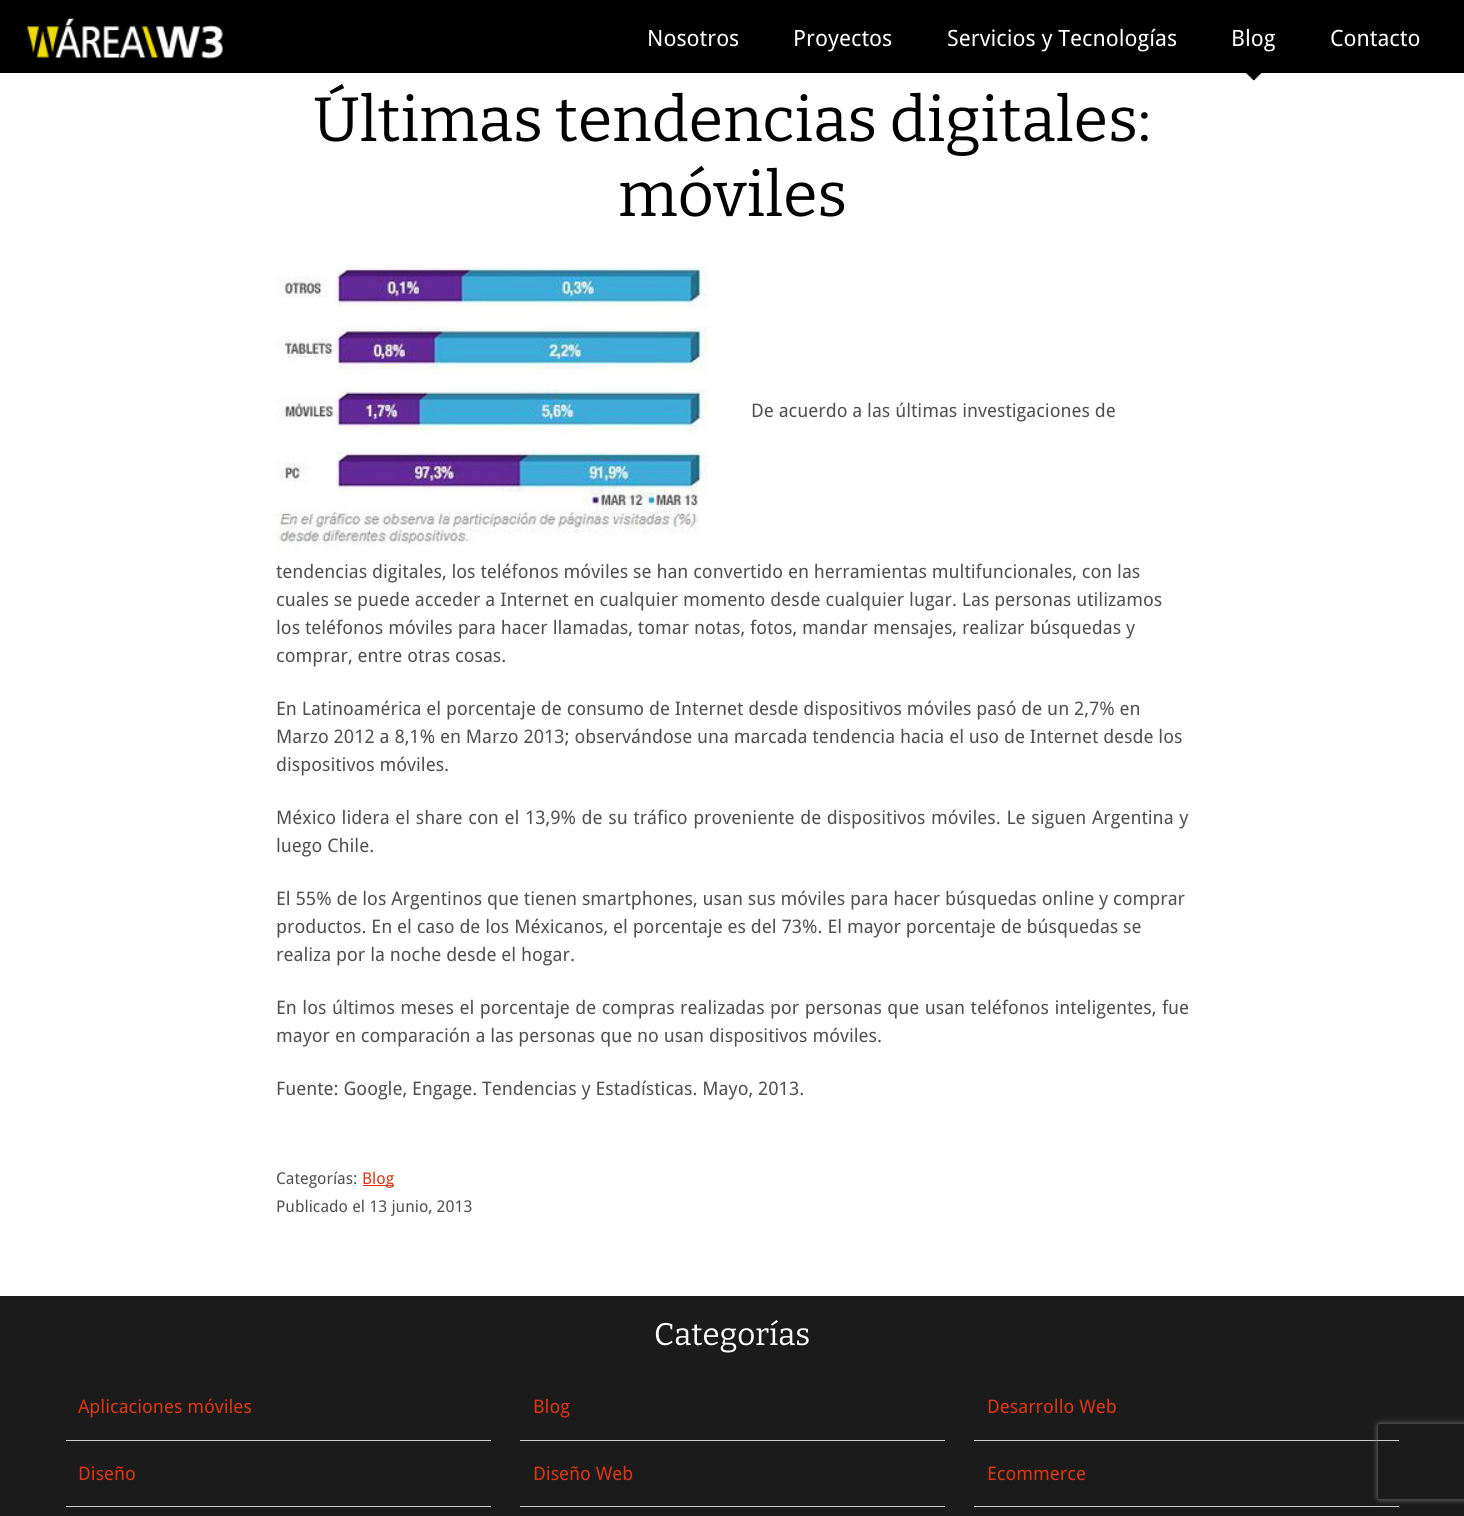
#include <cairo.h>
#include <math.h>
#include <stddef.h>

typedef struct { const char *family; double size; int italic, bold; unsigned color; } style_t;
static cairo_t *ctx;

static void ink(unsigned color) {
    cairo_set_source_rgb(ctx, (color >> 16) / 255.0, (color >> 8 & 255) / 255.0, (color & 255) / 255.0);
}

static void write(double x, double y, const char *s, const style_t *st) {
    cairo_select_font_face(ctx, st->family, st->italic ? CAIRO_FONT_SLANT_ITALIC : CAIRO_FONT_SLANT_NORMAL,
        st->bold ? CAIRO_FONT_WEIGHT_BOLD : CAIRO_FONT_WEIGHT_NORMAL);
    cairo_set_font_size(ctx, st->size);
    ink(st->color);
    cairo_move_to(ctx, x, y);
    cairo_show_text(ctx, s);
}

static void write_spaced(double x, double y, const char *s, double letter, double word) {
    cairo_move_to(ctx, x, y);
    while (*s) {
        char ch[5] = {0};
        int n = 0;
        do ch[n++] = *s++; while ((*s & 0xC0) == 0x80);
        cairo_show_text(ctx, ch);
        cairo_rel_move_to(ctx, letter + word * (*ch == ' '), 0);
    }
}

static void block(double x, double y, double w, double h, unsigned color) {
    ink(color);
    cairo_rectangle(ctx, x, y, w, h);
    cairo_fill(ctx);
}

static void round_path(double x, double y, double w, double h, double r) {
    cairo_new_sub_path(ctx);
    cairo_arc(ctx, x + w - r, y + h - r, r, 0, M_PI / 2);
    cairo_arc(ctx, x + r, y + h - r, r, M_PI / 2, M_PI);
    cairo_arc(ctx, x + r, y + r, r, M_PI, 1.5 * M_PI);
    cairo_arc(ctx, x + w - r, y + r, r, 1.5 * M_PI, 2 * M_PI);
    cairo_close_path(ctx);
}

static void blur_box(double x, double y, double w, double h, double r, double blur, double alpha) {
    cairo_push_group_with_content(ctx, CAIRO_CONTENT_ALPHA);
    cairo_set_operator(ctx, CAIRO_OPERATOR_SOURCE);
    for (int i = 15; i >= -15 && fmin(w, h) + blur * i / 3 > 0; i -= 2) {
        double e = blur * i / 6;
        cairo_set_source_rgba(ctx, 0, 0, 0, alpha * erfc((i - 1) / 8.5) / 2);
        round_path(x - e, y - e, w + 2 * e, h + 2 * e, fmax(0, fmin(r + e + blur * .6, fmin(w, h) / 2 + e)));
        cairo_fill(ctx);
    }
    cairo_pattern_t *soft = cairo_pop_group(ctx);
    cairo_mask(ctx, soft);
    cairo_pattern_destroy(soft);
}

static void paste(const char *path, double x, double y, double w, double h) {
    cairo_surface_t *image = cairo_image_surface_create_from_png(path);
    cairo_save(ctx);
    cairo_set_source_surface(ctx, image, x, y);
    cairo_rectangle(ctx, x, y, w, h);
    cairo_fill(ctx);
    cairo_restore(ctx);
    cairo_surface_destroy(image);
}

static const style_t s1 = {"Droid Sans", 22.5, 0, 0, 0xffffff};
static const style_t s2 = {"Bitter", 62.5, 0, 0, 0x000000};
static const style_t s3 = {"Droid Sans", 18.7, 0, 0, 0x515151};
static const style_t s4 = {"Droid Sans", 16.25, 0, 0, 0x515151};
static const style_t s5 = {"Droid Sans", 16.25, 0, 0, 0xd93611};
static const style_t s6 = {"Bitter", 31.25, 0, 0, 0xffffff};
static const style_t s7 = {"Droid Sans", 18.7, 0, 0, 0xd93611};

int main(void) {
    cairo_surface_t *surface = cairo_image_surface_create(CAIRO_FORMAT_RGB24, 1464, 1516);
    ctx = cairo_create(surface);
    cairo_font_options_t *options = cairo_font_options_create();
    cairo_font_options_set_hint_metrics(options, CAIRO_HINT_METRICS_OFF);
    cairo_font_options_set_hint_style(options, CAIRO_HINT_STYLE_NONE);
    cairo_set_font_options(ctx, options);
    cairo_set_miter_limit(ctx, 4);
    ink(0xffffff);
    cairo_paint(ctx);
    block(0, 0, 1464, 73, 0x000000);
    paste("pic1.png", 27, 18, 196, 41);
    write(647, 46, "Nosotros", &s1);
    write(793, 46, "Proyectos", &s1);
    write(947, 46, "Servicios y Tecnologías", &s1);
    write(1231, 46, "Blog", &s1);
    paste("pic2.png", 1246, 73, 16, 8);
    write(1330, 46, "Contacto", &s1);
    write(313, 141, "Últimas tendencias digitales:", &s2);
    write(618, 216, "móviles", &s2);
    paste("pic3.png", 276, 266, 439, 287);
    write(751, 417, "De acuerdo a las últimas investigaciones de", &s3);
    write(276, 578, "tendencias digitales, los teléfonos móviles se han convertido en herramientas multifuncionales, con las", &s3);
    write(276, 606, "cuales se puede acceder a Internet en cualquier momento desde cualquier lugar. Las personas utilizamos", &s3);
    write(276, 634, "los teléfonos móviles para hacer llamadas, tomar notas, fotos, mandar mensajes, realizar búsquedas y", &s3);
    write(276, 662, "comprar, entre otras cosas.", &s3);
    write(276, 715, "En Latinoamérica el porcentaje de consumo de Internet desde dispositivos móviles pasó de un 2,7% en", &s3);
    write(276, 743, "Marzo 2012 a 8,1% en Marzo 2013; observándose una marcada tendencia hacia el uso de Internet desde los", &s3);
    write(276, 771, "dispositivos móviles.", &s3);
    write_spaced(276, 824, "México lidera el share con el 13,9% de su tráfico proveniente de dispositivos móviles. Le siguen Argentina y", 0, 0.8);
    write(276, 852, "luego Chile.", &s3);
    write(276, 905, "El 55% de los Argentinos que tienen smartphones, usan sus móviles para hacer búsquedas online y comprar", &s3);
    write(276, 933, "productos. En el caso de los Méxicanos, el porcentaje es del 73%. El mayor porcentaje de búsquedas se", &s3);
    write(276, 961, "realiza por la noche desde el hogar.", &s3);
    write_spaced(276, 1014, "En los últimos meses el porcentaje de compras realizadas por personas que usan teléfonos inteligentes, fue", 0, 0.6);
    write(276, 1042, "mayor en comparación a las personas que no usan dispositivos móviles.", &s3);
    write(276, 1095, "Fuente: Google, Engage. Tendencias y Estadísticas. Mayo, 2013.", &s3);
    write(276, 1184, "Categorías:", &s4);
    block(363, 1185, 31, 1, 0xd93611);
    write(362, 1184, "Blog", &s5);
    write(276, 1212, "Publicado el 13 junio, 2013", &s4);
    block(0, 1296, 1464, 220, 0x1b1b1b);
    write(654, 1345, "Categorías", &s6);
    block(66, 1440, 425, 1, 0xcccccc);
    write(78, 1413, "Aplicaciones móviles", &s7);
    block(520, 1440, 425, 1, 0xcccccc);
    write(533, 1413, "Blog", &s7);
    block(974, 1440, 425, 1, 0xcccccc);
    write(987, 1413, "Desarrollo Web", &s7);
    block(66, 1506, 425, 1, 0xcccccc);
    write(78, 1480, "Diseño", &s7);
    block(520, 1506, 425, 1, 0xcccccc);
    write(533, 1480, "Diseño Web", &s7);
    block(974, 1506, 425, 1, 0xcccccc);
    write(987, 1480, "Ecommerce", &s7);
    cairo_save(ctx);
    cairo_set_fill_rule(ctx, CAIRO_FILL_RULE_EVEN_ODD);
    cairo_new_path(ctx);
    cairo_move_to(ctx, 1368, 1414);
    cairo_line_to(ctx, 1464, 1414);
    cairo_line_to(ctx, 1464, 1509);
    cairo_line_to(ctx, 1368, 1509);
    cairo_close_path(ctx);
    cairo_move_to(ctx, 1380.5, 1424);
    cairo_line_to(ctx, 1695.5, 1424);
    cairo_curve_to(ctx, 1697, 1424, 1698, 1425, 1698, 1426.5);
    cairo_line_to(ctx, 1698, 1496.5);
    cairo_curve_to(ctx, 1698, 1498, 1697, 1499, 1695.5, 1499);
    cairo_line_to(ctx, 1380.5, 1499);
    cairo_curve_to(ctx, 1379, 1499, 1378, 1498, 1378, 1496.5);
    cairo_line_to(ctx, 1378, 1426.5);
    cairo_curve_to(ctx, 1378, 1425, 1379, 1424, 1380.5, 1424);
    cairo_close_path(ctx);
    cairo_clip(ctx);
    ink(0x808080);
    blur_box(1378, 1424, 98, 75, 2.5, 3, 1);
    cairo_restore(ctx);
    cairo_surface_write_to_png(surface, "screenshot.png");
    cairo_font_options_destroy(options);
    cairo_destroy(ctx);
    cairo_surface_destroy(surface);
    return 0;
}
